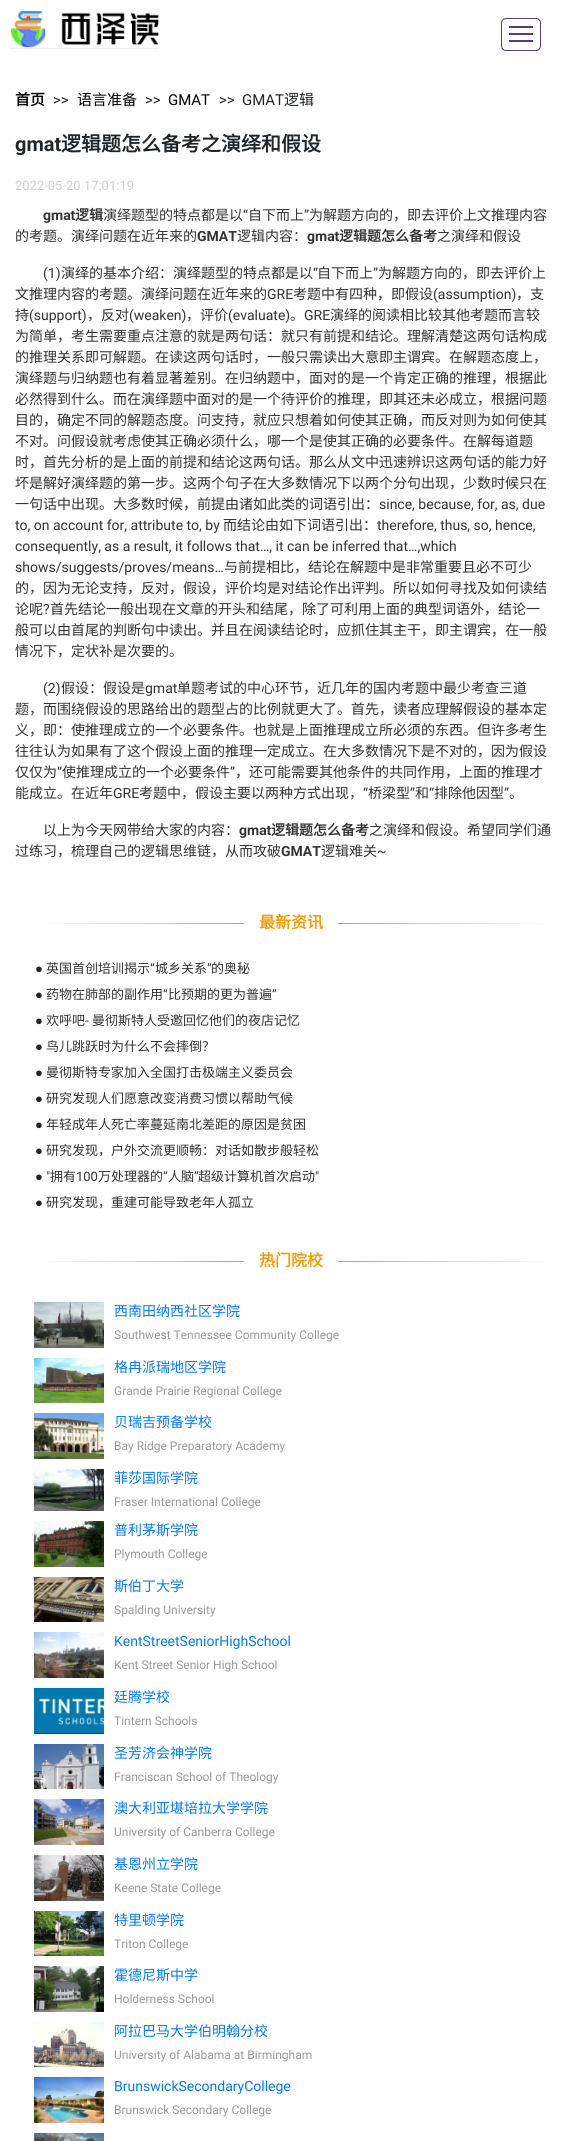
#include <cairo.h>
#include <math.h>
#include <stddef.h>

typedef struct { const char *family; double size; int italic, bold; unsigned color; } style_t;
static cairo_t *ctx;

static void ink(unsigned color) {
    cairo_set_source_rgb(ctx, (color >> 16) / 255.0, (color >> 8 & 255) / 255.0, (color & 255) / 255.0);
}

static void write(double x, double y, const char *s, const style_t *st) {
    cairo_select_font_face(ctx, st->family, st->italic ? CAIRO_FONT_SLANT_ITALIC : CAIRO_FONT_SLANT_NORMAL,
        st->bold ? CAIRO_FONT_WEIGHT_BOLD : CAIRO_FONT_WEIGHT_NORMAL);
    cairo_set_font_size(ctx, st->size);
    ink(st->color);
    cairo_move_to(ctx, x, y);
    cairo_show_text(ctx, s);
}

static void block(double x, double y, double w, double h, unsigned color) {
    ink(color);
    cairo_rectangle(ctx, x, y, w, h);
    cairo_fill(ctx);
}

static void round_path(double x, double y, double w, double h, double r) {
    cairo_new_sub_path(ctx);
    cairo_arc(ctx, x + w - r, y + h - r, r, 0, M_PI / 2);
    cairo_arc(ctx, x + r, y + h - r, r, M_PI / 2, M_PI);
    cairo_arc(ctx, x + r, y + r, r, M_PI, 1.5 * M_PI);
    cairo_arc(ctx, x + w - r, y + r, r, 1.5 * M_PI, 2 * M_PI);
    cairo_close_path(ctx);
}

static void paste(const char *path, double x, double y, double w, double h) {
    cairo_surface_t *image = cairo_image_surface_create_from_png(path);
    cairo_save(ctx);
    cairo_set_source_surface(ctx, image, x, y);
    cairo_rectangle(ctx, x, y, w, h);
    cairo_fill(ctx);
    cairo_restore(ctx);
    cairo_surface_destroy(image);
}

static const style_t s1 = {"Noto Sans CJK SC", 15, 0, 1, 0x000000};
static const style_t s2 = {"Roboto", 15, 0, 0, 0x212529};
static const style_t s3 = {"Noto Sans CJK SC", 15, 0, 0, 0x000000};
static const style_t s4 = {"Roboto", 15, 0, 0, 0x000000};
static const style_t s5 = {"Noto Sans CJK SC", 15, 0, 0, 0x212529};
static const style_t s6 = {"Roboto", 20, 0, 1, 0x212529};
static const style_t s7 = {"Noto Sans CJK SC", 20, 0, 1, 0x212529};
static const style_t s8 = {"Roboto", 13, 0, 0, 0xcecece};
static const style_t s9 = {"Roboto", 14, 0, 1, 0x333333};
static const style_t s10 = {"Noto Sans CJK SC", 14, 0, 1, 0x333333};
static const style_t s11 = {"Noto Sans CJK SC", 14, 0, 0, 0x333333};
static const style_t s12 = {"Roboto", 14, 0, 0, 0x333333};
static const style_t s13 = {"Noto Sans CJK SC", 16, 0, 1, 0xff9900};
static const style_t s14 = {"Noto Sans CJK SC", 13, 0, 0, 0x333333};
static const style_t s15 = {"Roboto", 13, 0, 0, 0x333333};
static const style_t s16 = {"Liberation Sans", 13, 0, 0, 0x212529};
static const style_t s17 = {"Noto Sans CJK SC", 14, 0, 0, 0x007bff};
static const style_t s18 = {"Roboto", 12, 0, 0, 0x999999};
static const style_t s19 = {"Roboto", 14, 0, 0, 0x007bff};

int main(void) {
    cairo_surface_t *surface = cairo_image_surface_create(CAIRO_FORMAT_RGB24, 567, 2141);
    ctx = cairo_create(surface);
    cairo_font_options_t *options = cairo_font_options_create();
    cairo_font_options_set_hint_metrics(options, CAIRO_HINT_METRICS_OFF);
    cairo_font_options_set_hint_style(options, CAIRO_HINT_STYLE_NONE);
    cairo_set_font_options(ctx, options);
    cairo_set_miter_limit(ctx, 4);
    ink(0xffffff);
    cairo_paint(ctx);
    block(10, 48, 149, 1, 0xefefef);
    paste("pic1.png", 11, 11, 148, 37);
    round_path(501.5, 18.5, 39, 32, 4.5);
    ink(0x563d7c);
    cairo_set_line_width(ctx, 1);
    cairo_stroke(ctx);
    block(509, 26, 24, 2, 0x563d7c);
    block(509, 33, 24, 2, 0x563d7c);
    block(509, 40, 24, 2, 0x563d7c);
    write(15, 105, "首页", &s1);
    write(53, 105, ">>", &s2);
    write(77, 105, "语言准备", &s3);
    write(145, 105, ">>", &s2);
    write(168, 105, "GMAT", &s4);
    write(219, 105, ">>", &s2);
    write(242, 105, "GMAT", &s2);
    write(284, 105, "逻辑", &s5);
    write(15, 151, "gmat", &s6);
    write(61, 151, "逻辑题怎么备考之演绎和假设", &s7);
    write(15, 190, "2022-05-20 17:01:19", &s8);
    write(43, 220, "gmat", &s9);
    write(75, 220, "逻辑", &s10);
    write(103, 220, "演绎题型的特点都是以", &s11);
    write(243, 220, "“", &s12);
    write(248, 220, "自下而上", &s11);
    write(304, 220, "”", &s12);
    write(309, 220, "为解题方向的，即去评价上文推理内容", &s11);
    write(15, 241, "的考题。演绎问题在近年来的", &s11);
    write(197, 241, "GMAT", &s9);
    write(237, 241, "逻辑内容：", &s11);
    write(307, 241, "gmat", &s9);
    write(339, 241, "逻辑题怎么备考", &s10);
    write(437, 241, "之演绎和假设", &s11);
    write(43, 278, "(1)", &s12);
    write(61, 278, "演绎的基本介绍：演绎题型的特点都是以", &s11);
    write(313, 278, "“", &s12);
    write(317, 278, "自下而上", &s11);
    write(373, 278, "”", &s12);
    write(378, 278, "为解题方向的，即去评价上", &s11);
    write(15, 299, "文推理内容的考题。演绎问题在近年来的", &s11);
    write(267, 299, "GRE", &s12);
    write(293, 299, "考题中有四种，即假设", &s11);
    write(433, 299, "(assumption)", &s12);
    write(516, 299, "，支", &s11);
    write(15, 320, "持", &s11);
    write(29, 320, "(support)", &s12);
    write(87, 320, "，反对", &s11);
    write(129, 320, "(weaken)", &s12);
    write(186, 320, "，评价", &s11);
    write(228, 320, "(evaluate)", &s12);
    write(290, 320, "。", &s11);
    write(304, 320, "GRE", &s12);
    write(330, 320, "演绎的阅读相比较其他考题而言较", &s11);
    write(15, 341, "为简单，考生需要重点注意的就是两句话：就只有前提和结论。理解清楚这两句话构成", &s11);
    write(15, 362, "的推理关系即可解题。在读这两句话时，一般只需读出大意即主谓宾。在解题态度上，", &s11);
    write(15, 383, "演绎题与归纳题也有着显著差别。在归纳题中，面对的是一个肯定正确的推理，根据此", &s11);
    write(15, 404, "必然得到什么。而在演绎题中面对的是一个待评价的推理，即其还未必成立，根据问题", &s11);
    write(15, 425, "目的，确定不同的解题态度。问支持，就应只想着如何使其正确，而反对则为如何使其", &s11);
    write(15, 446, "不对。问假设就考虑使其正确必须什么，哪一个是使其正确的必要条件。在解每道题", &s11);
    write(15, 467, "时，首先分析的是上面的前提和结论这两句话。那么从文中迅速辨识这两句话的能力好", &s11);
    write(15, 488, "坏是解好演绎题的第一步。这两个句子在大多数情况下以两个分句出现，少数时候只在", &s11);
    write(15, 509, "一句话中出现。大多数时候，前提由诸如此类的词语引出：", &s11);
    write(379, 509, "since, because, for, as, due", &s12);
    write(15, 530, "to, on account for, attribute to, by", &s12);
    write(223, 530, "而结论由如下词语引出：", &s11);
    write(377, 530, "therefore, thus, so, hence,", &s12);
    write(15, 551, "consequently, as a result, it follows that…, it can be inferred that…,which", &s12);
    write(15, 572, "shows/suggests/proves/means…", &s12);
    write(224, 572, "与前提相比，结论在解题中是非常重要且必不可少", &s11);
    write(15, 593, "的，因为无论支持，反对，假设，评价均是对结论作出评判。所以如何寻找及如何读结", &s11);
    write(15, 614, "论呢", &s11);
    write(43, 614, "?", &s12);
    write(50, 614, "首先结论一般出现在文章的开头和结尾，除了可利用上面的典型词语外，结论一", &s11);
    write(15, 635, "般可以由首尾的判断句中读出。并且在阅读结论时，应抓住其主干，即主谓宾，在一般", &s11);
    write(15, 656, "情况下，定状补是次要的。", &s11);
    write(43, 693, "(2)", &s12);
    write(61, 693, "假设：假设是", &s11);
    write(145, 693, "gmat", &s12);
    write(177, 693, "单题考试的中心环节，近几年的国内考题中最少考查三道", &s11);
    write(15, 714, "题，而围绕假设的思路给出的题型占的比例就更大了。首先，读者应理解假设的基本定", &s11);
    write(15, 735, "义，即：使推理成立的一个必要条件。也就是上面推理成立所必须的东西。但许多考生", &s11);
    write(15, 756, "往往认为如果有了这个假设上面的推理一定成立。在大多数情况下是不对的，因为假设", &s11);
    write(15, 777, "仅仅为", &s11);
    write(57, 777, "“", &s12);
    write(62, 777, "使推理成立的一个必要条件", &s11);
    write(230, 777, "”", &s12);
    write(235, 777, "，还可能需要其他条件的共同作用，上面的推理才", &s11);
    write(15, 798, "能成立。在近年", &s11);
    write(113, 798, "GRE", &s12);
    write(139, 798, "考题中，假设主要以两种方式出现，", &s11);
    write(363, 798, "“", &s12);
    write(368, 798, "桥梁型", &s11);
    write(410, 798, "”", &s12);
    write(415, 798, "和", &s11);
    write(429, 798, "“", &s12);
    write(434, 798, "排除他因型", &s11);
    write(504, 798, "”", &s12);
    write(509, 798, "。", &s11);
    write(43, 835, "以上为今天网带给大家的内容：", &s11);
    write(239, 835, "gmat", &s9);
    write(271, 835, "逻辑题怎么备考", &s10);
    write(369, 835, "之演绎和假设。希望同学们通", &s11);
    write(15, 856, "过练习，梳理自己的逻辑思维链，从而攻破", &s11);
    write(281, 856, "GMAT", &s9);
    write(321, 856, "逻辑难关", &s11);
    write(377, 856, "~", &s12);
    paste("pic2.png", 43, 923, 504, 1);
    block(244, 923, 94, 1, 0xffffff);
    write(259, 928, "最新资讯", &s13);
    write(46, 973, "英国首创培训揭示", &s14);
    write(150, 973, "“", &s15);
    write(155, 973, "城乡关系", &s14);
    write(207, 973, "”", &s15);
    write(211, 973, "的奥秘", &s14);
    write(35, 973, "●", &s16);
    write(46, 999, "药物在肺部的副作用", &s14);
    write(163, 999, "“", &s15);
    write(168, 999, "比预期的更为普遍", &s14);
    write(272, 999, "”", &s15);
    write(35, 999, "●", &s16);
    write(35, 1025, "●", &s16);
    write(46, 1025, "欢呼吧", &s14);
    write(85, 1025, "-", &s15);
    write(92, 1025, "曼彻斯特人受邀回忆他们的夜店记忆", &s14);
    write(35, 1051, "●", &s16);
    write(46, 1051, "鸟儿跳跃时为什么不会摔倒？", &s14);
    write(35, 1077, "●", &s16);
    write(46, 1077, "曼彻斯特专家加入全国打击极端主义委员会", &s14);
    write(35, 1103, "●", &s16);
    write(46, 1103, "研究发现人们愿意改变消费习惯以帮助气候", &s14);
    write(35, 1129, "●", &s16);
    write(46, 1129, "年轻成年人死亡率蔓延南北差距的原因是贫困", &s14);
    write(35, 1155, "●", &s16);
    write(46, 1155, "研究发现，户外交流更顺畅：对话如散步般轻松", &s14);
    write(46, 1181, "\"", &s15);
    write(50, 1181, "拥有", &s14);
    write(76, 1181, "100", &s15);
    write(98, 1181, "万处理器的", &s14);
    write(163, 1181, "“", &s15);
    write(168, 1181, "人脑", &s14);
    write(194, 1181, "”", &s15);
    write(198, 1181, "超级计算机首次启动", &s14);
    write(315, 1181, "\"", &s15);
    write(35, 1181, "●", &s16);
    write(35, 1207, "●", &s16);
    write(46, 1207, "研究发现，重建可能导致老年人孤立", &s14);
    paste("pic2.png", 43, 1261, 504, 1);
    block(244, 1261, 94, 1, 0xffffff);
    write(259, 1266, "热门院校", &s13);
    paste("pic3.png", 34, 1302, 70, 46);
    write(114, 1316, "西南田纳西社区学院", &s17);
    write(114, 1339, "Southwest Tennessee Community College", &s18);
    paste("pic4.png", 34, 1358, 70, 45);
    write(114, 1372, "格冉派瑞地区学院", &s17);
    write(114, 1395, "Grande Prairie Regional College", &s18);
    paste("pic5.png", 34, 1413, 70, 46);
    write(114, 1427, "贝瑞吉预备学校", &s17);
    write(114, 1450, "Bay Ridge Preparatory Academy", &s18);
    paste("pic6.png", 34, 1469, 70, 42);
    write(114, 1483, "菲莎国际学院", &s17);
    write(114, 1506, "Fraser International College", &s18);
    paste("pic7.png", 34, 1521, 70, 46);
    write(114, 1535, "普利茅斯学院", &s17);
    write(114, 1558, "Plymouth College", &s18);
    paste("pic8.png", 34, 1577, 70, 45);
    write(114, 1591, "斯伯丁大学", &s17);
    write(114, 1614, "Spalding University", &s18);
    paste("pic9.png", 34, 1632, 70, 46);
    write(114, 1646, "KentStreetSeniorHighSchool", &s19);
    write(114, 1669, "Kent Street Senior High School", &s18);
    paste("pic10.png", 34, 1688, 70, 46);
    write(114, 1702, "廷腾学校", &s17);
    write(114, 1725, "Tintern Schools", &s18);
    paste("pic11.png", 34, 1744, 70, 45);
    write(114, 1758, "圣芳济会神学院", &s17);
    write(114, 1781, "Franciscan School of Theology", &s18);
    paste("pic12.png", 34, 1799, 70, 46);
    write(114, 1813, "澳大利亚堪培拉大学学院", &s17);
    write(114, 1836, "University of Canberra College", &s18);
    paste("pic13.png", 34, 1855, 70, 46);
    write(114, 1869, "基恩州立学院", &s17);
    write(114, 1892, "Keene State College", &s18);
    paste("pic14.png", 34, 1911, 70, 45);
    write(114, 1925, "特里顿学院", &s17);
    write(114, 1948, "Triton College", &s18);
    paste("pic15.png", 34, 1966, 70, 46);
    write(114, 1980, "霍德尼斯中学", &s17);
    write(114, 2003, "Holderness School", &s18);
    paste("pic16.png", 34, 2022, 70, 45);
    write(114, 2036, "阿拉巴马大学伯明翰分校", &s17);
    write(114, 2059, "University of Alabama at Birmingham", &s18);
    paste("pic17.png", 34, 2077, 70, 46);
    write(114, 2091, "BrunswickSecondaryCollege", &s19);
    write(114, 2114, "Brunswick Secondary College", &s18);
    paste("pic18.png", 34, 2133, 70, 8);
    cairo_surface_write_to_png(surface, "screenshot.png");
    cairo_font_options_destroy(options);
    cairo_destroy(ctx);
    cairo_surface_destroy(surface);
    return 0;
}
